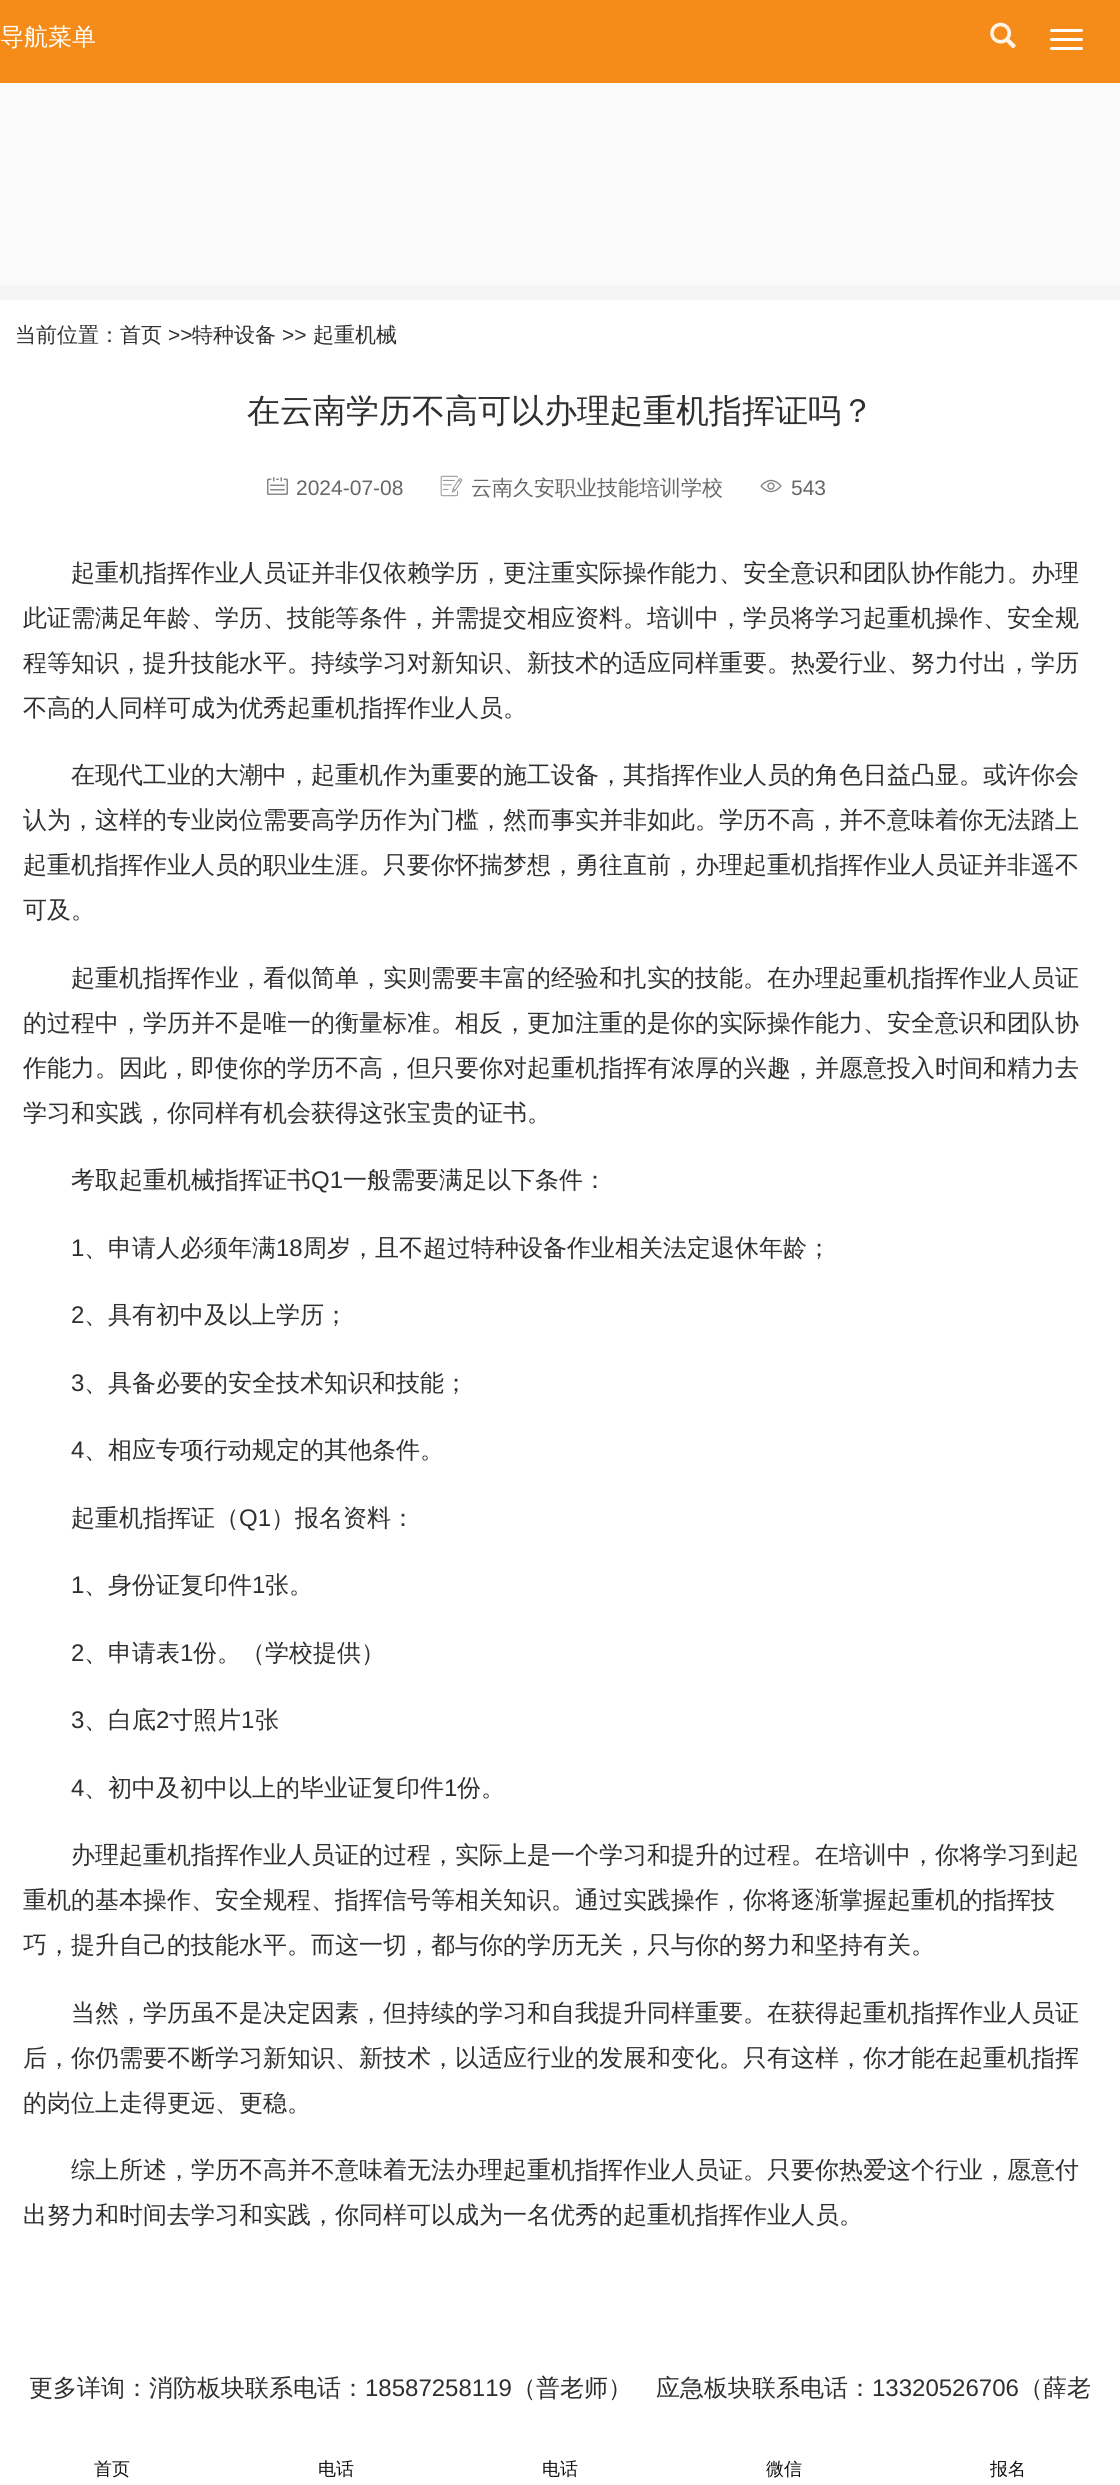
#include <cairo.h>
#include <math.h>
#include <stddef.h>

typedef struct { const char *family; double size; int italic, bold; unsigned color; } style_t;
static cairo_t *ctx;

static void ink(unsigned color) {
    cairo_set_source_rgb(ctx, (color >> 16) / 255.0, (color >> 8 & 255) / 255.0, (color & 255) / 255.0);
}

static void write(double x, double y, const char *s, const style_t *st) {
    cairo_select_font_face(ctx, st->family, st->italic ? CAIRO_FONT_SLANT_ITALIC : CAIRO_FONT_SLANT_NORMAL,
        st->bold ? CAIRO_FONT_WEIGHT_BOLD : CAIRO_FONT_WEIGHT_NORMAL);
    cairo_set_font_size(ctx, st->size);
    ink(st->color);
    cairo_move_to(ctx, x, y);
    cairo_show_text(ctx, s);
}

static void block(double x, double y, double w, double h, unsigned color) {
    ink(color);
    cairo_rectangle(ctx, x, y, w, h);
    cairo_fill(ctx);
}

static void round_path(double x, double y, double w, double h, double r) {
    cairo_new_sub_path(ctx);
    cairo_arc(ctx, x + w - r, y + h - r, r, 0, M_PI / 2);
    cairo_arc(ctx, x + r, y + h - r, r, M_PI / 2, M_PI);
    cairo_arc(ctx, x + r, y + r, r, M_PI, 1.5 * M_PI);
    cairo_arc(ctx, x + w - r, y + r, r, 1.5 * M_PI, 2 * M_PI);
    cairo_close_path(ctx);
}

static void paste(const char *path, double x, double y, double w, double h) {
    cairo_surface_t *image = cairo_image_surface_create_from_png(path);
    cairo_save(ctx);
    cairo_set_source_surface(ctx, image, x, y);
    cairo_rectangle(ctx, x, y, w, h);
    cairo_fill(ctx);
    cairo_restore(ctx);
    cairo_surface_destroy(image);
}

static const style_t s1 = {"WenQuanYi Zen Hei Medium", 24, 0, 0, 0xffffff};
static const style_t s2 = {"WenQuanYi Zen Hei Medium", 21, 0, 0, 0x2f2f2f};
static const style_t s3 = {"Liberation Sans", 21, 0, 0, 0x2f2f2f};
static const style_t s4 = {"WenQuanYi Zen Hei Medium", 33, 0, 0, 0x2f2f2f};
static const style_t s5 = {"Liberation Sans", 21, 0, 0, 0x666666};
static const style_t s6 = {"WenQuanYi Zen Hei Medium", 21, 0, 0, 0x666666};
static const style_t s7 = {"WenQuanYi Zen Hei Medium", 24, 0, 0, 0x2f2f2f};
static const style_t s8 = {"Liberation Sans", 24, 0, 0, 0x2f2f2f};
static const style_t s9 = {"WenQuanYi Zen Hei Medium", 18, 0, 0, 0x111111};

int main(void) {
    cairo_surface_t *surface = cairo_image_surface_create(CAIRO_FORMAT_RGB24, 1120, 2485);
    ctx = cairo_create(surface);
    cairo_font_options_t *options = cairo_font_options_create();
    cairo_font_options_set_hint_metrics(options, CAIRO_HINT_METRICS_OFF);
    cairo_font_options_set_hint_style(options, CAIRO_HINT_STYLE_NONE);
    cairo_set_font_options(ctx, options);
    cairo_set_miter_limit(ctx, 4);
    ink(0xfbfbfb);
    cairo_paint(ctx);
    block(0, 0, 1120, 83, 0xf58c19);
    write(0, 45, "导航菜单", &s1);
    paste("pic1.png", 990, 22, 26, 27);
    round_path(1050, 29, 33, 3, 1.5);
    cairo_fill(ctx);
    round_path(1050, 38, 33, 3, 1.5);
    cairo_fill(ctx);
    round_path(1050, 47, 33, 3, 1.5);
    cairo_fill(ctx);
    block(0, 285, 1120, 15, 0xf5f5f5);
    block(0, 300, 1120, 2185, 0xffffff);
    write(15, 342, "当前位置：", &s2);
    write(120, 342, "首页", &s2);
    write(168, 342, ">>", &s3);
    write(192, 342, "特种设备", &s2);
    write(282, 342, ">>", &s3);
    write(313, 342, "起重机械", &s2);
    write(247, 422, "在云南学历不高可以办理起重机指挥证吗？", &s4);
    paste("pic2.png", 267, 477, 21, 18);
    write(296, 495, "2024-07-08", &s5);
    paste("pic3.png", 440, 475, 23, 22);
    write(471, 495, "云南久安职业技能培训学校", &s6);
    paste("pic4.png", 760, 479, 22, 14);
    write(791, 495, "543", &s5);
    write(71, 581, "起重机指挥作业人员证并非仅依赖学历，更注重实际操作能力、安全意识和团队协作能力。办理", &s7);
    write(23, 626, "此证需满足年龄、学历、技能等条件，并需提交相应资料。培训中，学员将学习起重机操作、安全规", &s7);
    write(23, 671, "程等知识，提升技能水平。持续学习对新知识、新技术的适应同样重要。热爱行业、努力付出，学历", &s7);
    write(23, 716, "不高的人同样可成为优秀起重机指挥作业人员。", &s7);
    write(71, 783, "在现代工业的大潮中，起重机作为重要的施工设备，其指挥作业人员的角色日益凸显。或许你会", &s7);
    write(23, 828, "认为，这样的专业岗位需要高学历作为门槛，然而事实并非如此。学历不高，并不意味着你无法踏上", &s7);
    write(23, 873, "起重机指挥作业人员的职业生涯。只要你怀揣梦想，勇往直前，办理起重机指挥作业人员证并非遥不", &s7);
    write(23, 918, "可及。", &s7);
    write(71, 986, "起重机指挥作业，看似简单，实则需要丰富的经验和扎实的技能。在办理起重机指挥作业人员证", &s7);
    write(23, 1031, "的过程中，学历并不是唯一的衡量标准。相反，更加注重的是你的实际操作能力、安全意识和团队协", &s7);
    write(23, 1076, "作能力。因此，即使你的学历不高，但只要你对起重机指挥有浓厚的兴趣，并愿意投入时间和精力去", &s7);
    write(23, 1121, "学习和实践，你同样有机会获得这张宝贵的证书。", &s7);
    write(71, 1188, "考取起重机械指挥证书", &s7);
    write(311, 1188, "Q1", &s8);
    write(343, 1188, "一般需要满足以下条件：", &s7);
    write(71, 1256, "1", &s8);
    write(84, 1256, "、申请人必须年满", &s7);
    write(276, 1256, "18", &s8);
    write(303, 1256, "周岁，且不超过特种设备作业相关法定退休年龄；", &s7);
    write(71, 1323, "2", &s8);
    write(84, 1323, "、具有初中及以上学历；", &s7);
    write(71, 1391, "3", &s8);
    write(84, 1391, "、具备必要的安全技术知识和技能；", &s7);
    write(71, 1458, "4", &s8);
    write(84, 1458, "、相应专项行动规定的其他条件。", &s7);
    write(71, 1526, "起重机指挥证（", &s7);
    write(239, 1526, "Q1", &s8);
    write(271, 1526, "）报名资料：", &s7);
    write(71, 1593, "1", &s8);
    write(84, 1593, "、身份证复印件", &s7);
    write(252, 1593, "1", &s8);
    write(265, 1593, "张。", &s7);
    write(71, 1661, "2", &s8);
    write(84, 1661, "、申请表", &s7);
    write(180, 1661, "1", &s8);
    write(193, 1661, "份。（学校提供）", &s7);
    write(71, 1728, "3", &s8);
    write(84, 1728, "、白底", &s7);
    write(156, 1728, "2", &s8);
    write(169, 1728, "寸照片", &s7);
    write(241, 1728, "1", &s8);
    write(255, 1728, "张", &s7);
    write(71, 1796, "4", &s8);
    write(84, 1796, "、初中及初中以上的毕业证复印件", &s7);
    write(444, 1796, "1", &s8);
    write(457, 1796, "份。", &s7);
    write(71, 1863, "办理起重机指挥作业人员证的过程，实际上是一个学习和提升的过程。在培训中，你将学习到起", &s7);
    write(23, 1908, "重机的基本操作、安全规程、指挥信号等相关知识。通过实践操作，你将逐渐掌握起重机的指挥技", &s7);
    write(23, 1953, "巧，提升自己的技能水平。而这一切，都与你的学历无关，只与你的努力和坚持有关。", &s7);
    write(71, 2021, "当然，学历虽不是决定因素，但持续的学习和自我提升同样重要。在获得起重机指挥作业人员证", &s7);
    write(23, 2066, "后，你仍需要不断学习新知识、新技术，以适应行业的发展和变化。只有这样，你才能在起重机指挥", &s7);
    write(23, 2111, "的岗位上走得更远、更稳。", &s7);
    write(71, 2178, "综上所述，学历不高并不意味着无法办理起重机指挥作业人员证。只要你热爱这个行业，愿意付", &s7);
    write(23, 2223, "出努力和时间去学习和实践，你同样可以成为一名优秀的起重机指挥作业人员。", &s7);
    write(29, 2396, "更多详询：消防板块联系电话：", &s7);
    write(365, 2396, "18587258119", &s8);
    write(512, 2396, "（普老师）　应急板块联系电话：", &s7);
    write(872, 2396, "13320526706", &s8);
    write(1019, 2396, "（薛老", &s7);
    write(94, 2475, "首页", &s9);
    write(318, 2475, "电话", &s9);
    write(542, 2475, "电话", &s9);
    write(766, 2475, "微信", &s9);
    write(990, 2475, "报名", &s9);
    cairo_surface_write_to_png(surface, "screenshot.png");
    cairo_font_options_destroy(options);
    cairo_destroy(ctx);
    cairo_surface_destroy(surface);
    return 0;
}
